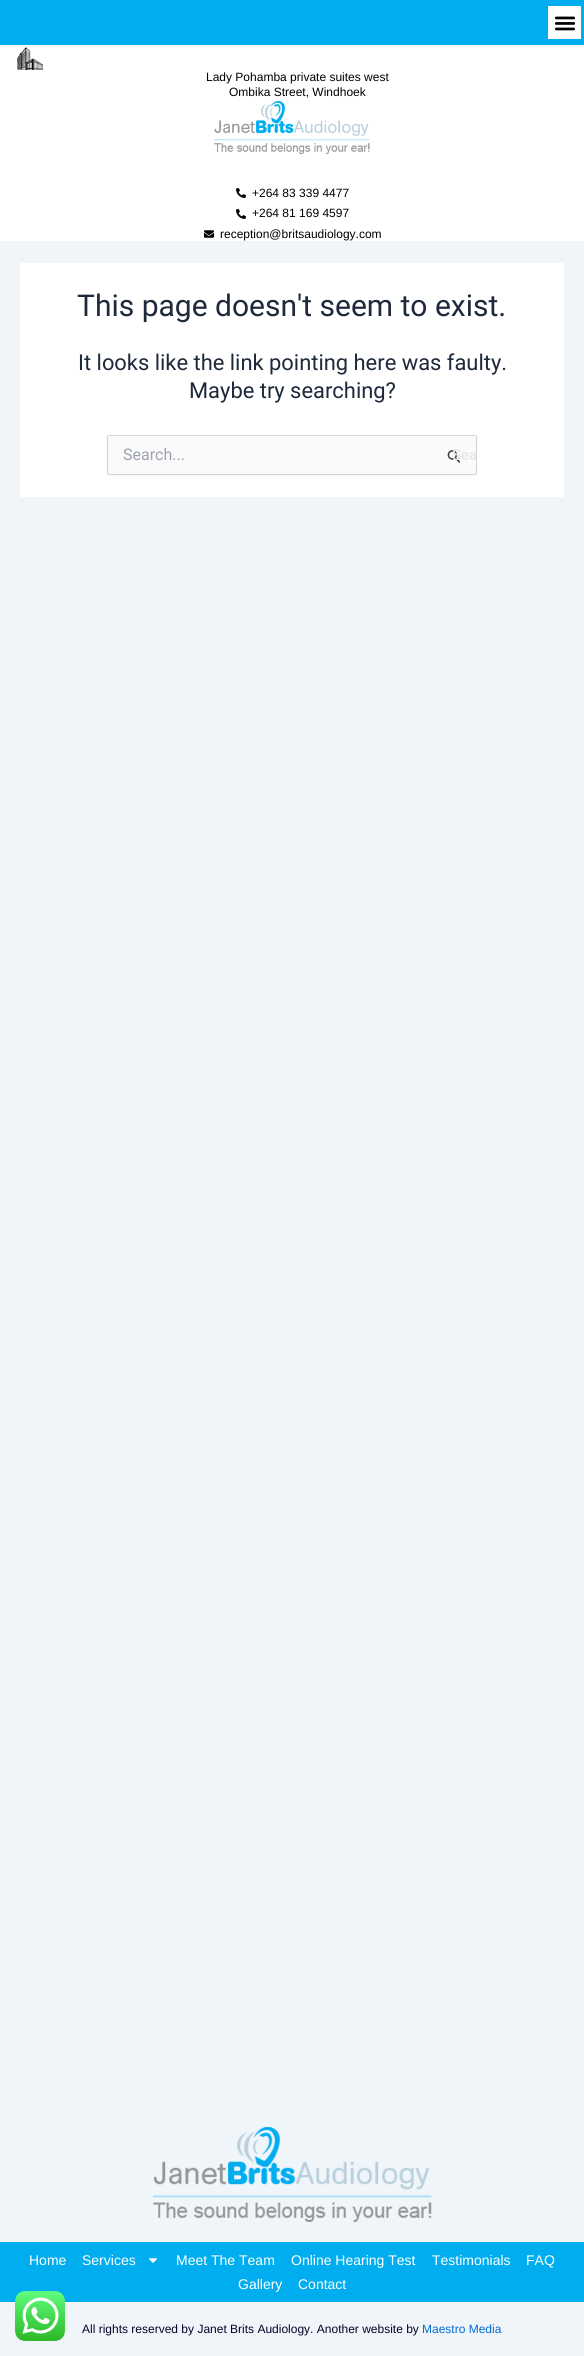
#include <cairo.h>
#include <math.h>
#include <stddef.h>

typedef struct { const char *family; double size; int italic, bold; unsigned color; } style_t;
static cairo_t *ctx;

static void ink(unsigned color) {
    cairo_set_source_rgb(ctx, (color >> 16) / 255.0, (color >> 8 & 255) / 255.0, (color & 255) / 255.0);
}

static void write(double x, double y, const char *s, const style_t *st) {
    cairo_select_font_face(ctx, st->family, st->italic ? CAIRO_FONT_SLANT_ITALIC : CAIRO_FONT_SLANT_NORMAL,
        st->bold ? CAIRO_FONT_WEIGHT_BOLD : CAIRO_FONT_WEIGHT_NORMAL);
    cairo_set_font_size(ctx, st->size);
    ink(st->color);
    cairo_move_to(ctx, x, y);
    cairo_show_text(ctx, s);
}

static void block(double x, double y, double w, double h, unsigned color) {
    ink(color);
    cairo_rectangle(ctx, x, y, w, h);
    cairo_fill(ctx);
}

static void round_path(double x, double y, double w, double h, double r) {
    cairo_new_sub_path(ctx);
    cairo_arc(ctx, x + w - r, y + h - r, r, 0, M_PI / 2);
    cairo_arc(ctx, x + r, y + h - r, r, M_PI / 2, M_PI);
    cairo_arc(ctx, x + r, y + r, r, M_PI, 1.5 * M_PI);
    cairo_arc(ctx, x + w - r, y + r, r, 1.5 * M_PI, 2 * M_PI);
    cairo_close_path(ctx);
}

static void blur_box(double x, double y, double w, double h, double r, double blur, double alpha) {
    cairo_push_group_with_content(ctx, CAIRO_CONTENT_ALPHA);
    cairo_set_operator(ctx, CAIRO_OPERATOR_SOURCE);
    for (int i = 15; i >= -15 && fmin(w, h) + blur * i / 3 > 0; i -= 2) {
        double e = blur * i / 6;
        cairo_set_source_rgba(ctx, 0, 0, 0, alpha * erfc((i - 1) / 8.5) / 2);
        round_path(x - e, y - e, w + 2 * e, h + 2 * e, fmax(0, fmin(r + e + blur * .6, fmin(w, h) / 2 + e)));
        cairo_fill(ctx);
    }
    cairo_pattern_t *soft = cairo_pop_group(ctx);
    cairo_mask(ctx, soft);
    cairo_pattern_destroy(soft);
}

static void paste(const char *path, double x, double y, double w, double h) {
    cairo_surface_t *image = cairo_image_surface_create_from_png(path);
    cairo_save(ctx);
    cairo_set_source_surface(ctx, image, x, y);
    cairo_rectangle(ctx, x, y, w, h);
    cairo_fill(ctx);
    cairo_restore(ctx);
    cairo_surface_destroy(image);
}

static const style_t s1 = {"Liberation Sans", 12, 0, 0, 0x000000};
static const style_t s2 = {"Roboto", 30, 0, 0, 0x1e293b};
static const style_t s3 = {"Roboto", 21.9, 0, 0, 0x1e293b};
static const style_t s4 = {"Roboto", 16, 0, 0, 0x9ca3af};
static const style_t s5 = {"Roboto Medium", 15, 0, 0, 0xe6e6e6};
static const style_t s6 = {"Liberation Sans", 14, 0, 0, 0xffffff};
static const style_t s7 = {"Liberation Sans", 12, 0, 0, 0x09012a};
static const style_t s8 = {"Liberation Sans", 12, 0, 0, 0x046bd2};

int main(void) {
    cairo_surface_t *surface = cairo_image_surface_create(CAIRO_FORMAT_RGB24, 584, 2356);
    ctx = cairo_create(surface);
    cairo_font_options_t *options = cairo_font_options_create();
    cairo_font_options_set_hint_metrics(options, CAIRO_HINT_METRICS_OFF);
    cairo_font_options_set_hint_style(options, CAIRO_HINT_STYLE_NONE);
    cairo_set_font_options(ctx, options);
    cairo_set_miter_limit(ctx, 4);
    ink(0xf0f5fa);
    cairo_paint(ctx);
    block(0, 45, 584, 196, 0xffffff);
    block(0, 0, 584, 45, 0x00aeef);
    block(548, 6, 33, 33, 0xffffff);
    paste("pic1.png", 554, 16, 22, 15);
    paste("pic2.png", 17, 47, 26, 23);
    write(206, 81, "Lady Pohamba private suites west", &s1);
    write(229, 96, "Ombika Street, Windhoek", &s1);
    paste("pic3.png", 214, 101, 156, 53);
    paste("pic4.png", 236, 188, 10, 10);
    write(252, 197, "+264 83 339 4477", &s1);
    paste("pic4.png", 236, 209, 10, 10);
    write(252, 217, "+264 81 169 4597", &s1);
    paste("pic5.png", 204, 230, 10, 8);
    write(220, 238, "reception@britsaudiology.com", &s1);
    block(20, 263, 544, 234, 0xffffff);
    write(77, 316, "This page doesn't seem to exist.", &s2);
    write(78, 370, "It looks like the link pointing here was faulty.", &s3);
    write(189, 398, "Maybe try searching?", &s3);
    ink(0x000000);
    blur_box(107, 436, 370, 40, 2, 1, 0.05);
    ink(0xfafafa);
    round_path(107.5, 435.5, 369, 39, 1.5);
    cairo_fill_preserve(ctx);
    ink(0xd1d5db);
    cairo_set_line_width(ctx, 1);
    cairo_stroke(ctx);
    write(123, 460, "Search...", &s4);
    paste("pic6.png", 447, 450, 13, 13);
    write(452, 460, "Sea", &s5);
    paste("pic7.png", 153, 2127, 279, 95);
    block(0, 2242, 584, 60, 0x00aeef);
    write(29, 2265, "Home", &s6);
    write(82, 2265, "Services", &s6);
    paste("pic8.png", 149, 2258, 8, 5);
    write(176, 2265, "Meet The Team", &s6);
    write(291, 2265, "Online Hearing Test", &s6);
    write(432, 2265, "Testimonials", &s6);
    write(526, 2265, "FAQ", &s6);
    write(238, 2289, "Gallery", &s6);
    write(298, 2289, "Contact", &s6);
    write(82, 2333, "All rights reserved by Janet Brits Audiology. Another website by", &s7);
    write(422, 2333, "Maestro Media", &s8);
    paste("pic9.png", 15, 2291, 50, 50);
    cairo_surface_write_to_png(surface, "screenshot.png");
    cairo_font_options_destroy(options);
    cairo_destroy(ctx);
    cairo_surface_destroy(surface);
    return 0;
}
